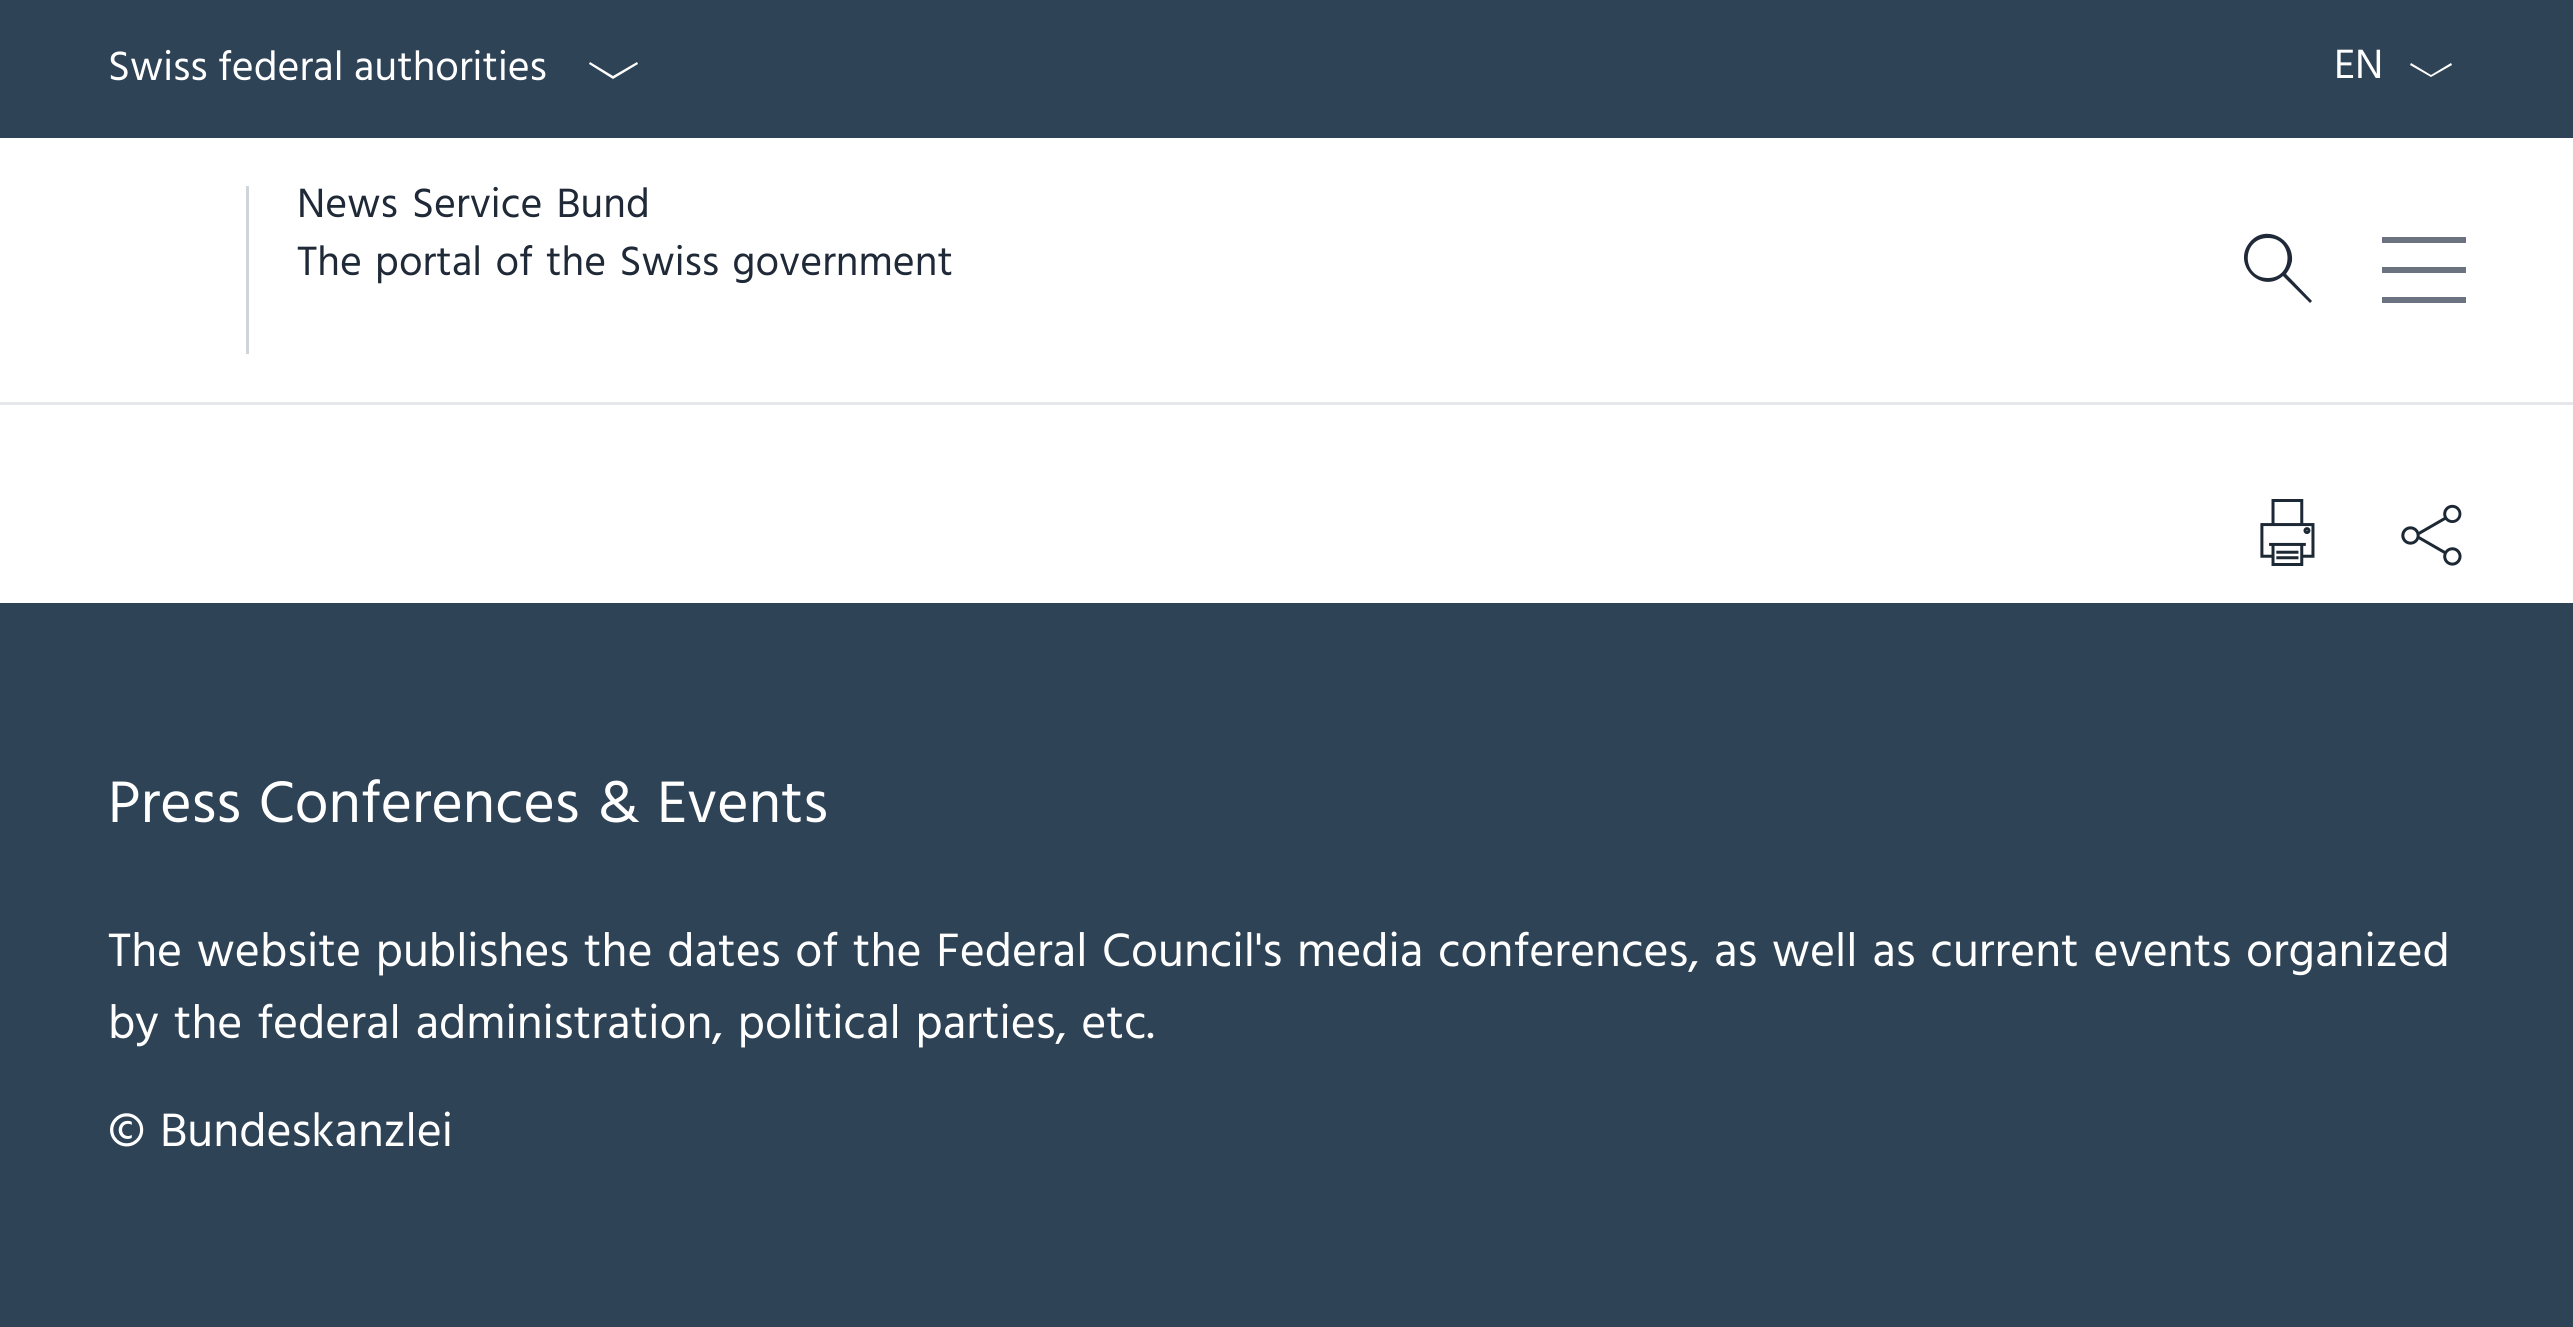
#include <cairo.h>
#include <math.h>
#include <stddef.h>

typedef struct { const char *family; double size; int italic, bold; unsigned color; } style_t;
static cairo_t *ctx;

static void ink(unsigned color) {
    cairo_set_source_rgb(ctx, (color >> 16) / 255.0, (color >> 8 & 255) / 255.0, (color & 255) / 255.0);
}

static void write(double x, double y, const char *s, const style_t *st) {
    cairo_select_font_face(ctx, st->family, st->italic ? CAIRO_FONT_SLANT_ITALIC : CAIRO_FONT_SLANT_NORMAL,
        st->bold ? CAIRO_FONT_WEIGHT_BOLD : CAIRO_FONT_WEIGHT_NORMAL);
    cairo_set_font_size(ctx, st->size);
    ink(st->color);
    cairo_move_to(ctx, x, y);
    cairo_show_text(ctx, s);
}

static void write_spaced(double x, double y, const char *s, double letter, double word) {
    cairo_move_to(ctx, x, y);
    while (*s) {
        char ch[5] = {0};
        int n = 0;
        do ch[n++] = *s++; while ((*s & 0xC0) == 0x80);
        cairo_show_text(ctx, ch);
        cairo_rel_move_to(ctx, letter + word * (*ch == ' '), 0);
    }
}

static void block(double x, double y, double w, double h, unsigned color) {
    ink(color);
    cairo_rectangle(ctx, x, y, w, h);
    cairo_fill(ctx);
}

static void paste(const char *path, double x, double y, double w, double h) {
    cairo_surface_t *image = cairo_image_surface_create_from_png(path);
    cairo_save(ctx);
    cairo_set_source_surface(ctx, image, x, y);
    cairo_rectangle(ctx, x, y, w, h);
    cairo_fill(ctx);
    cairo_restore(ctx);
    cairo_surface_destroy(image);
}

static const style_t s1 = {"Hind", 42, 0, 0, 0xffffff};

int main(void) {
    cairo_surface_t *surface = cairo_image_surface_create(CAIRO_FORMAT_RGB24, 2573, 1327);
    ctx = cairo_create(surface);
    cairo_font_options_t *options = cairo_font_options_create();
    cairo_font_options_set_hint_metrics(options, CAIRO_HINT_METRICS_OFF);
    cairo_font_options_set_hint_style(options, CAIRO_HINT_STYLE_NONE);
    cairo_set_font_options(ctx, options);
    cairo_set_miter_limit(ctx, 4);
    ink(0xffffff);
    cairo_paint(ctx);
    block(0, 0, 2573, 138, 0x2f4356);
    write(108, 80, "Swiss federal authorities", &s1);
    cairo_new_path(ctx);
    cairo_move_to(ctx, 590, 62);
    cairo_line_to(ctx, 613, 76);
    cairo_line_to(ctx, 637, 62);
    cairo_line_to(ctx, 638, 64);
    cairo_line_to(ctx, 613, 79);
    cairo_line_to(ctx, 589, 64);
    cairo_close_path(ctx);
    cairo_fill(ctx);
    write(2334, 78, "EN", &s1);
    cairo_new_path(ctx);
    cairo_move_to(ctx, 2411, 63);
    cairo_line_to(ctx, 2431, 75);
    cairo_line_to(ctx, 2451, 63);
    cairo_line_to(ctx, 2452, 65);
    cairo_line_to(ctx, 2431, 77);
    cairo_line_to(ctx, 2410, 65);
    cairo_close_path(ctx);
    cairo_fill(ctx);
    block(0, 402, 2573, 3, 0xe5e7eb);
    block(246, 186, 3, 168, 0xd1d5db);
    ink(0x1f2937);
    write_spaced(297, 217, "News Service Bund", 0, 4);
    write_spaced(297, 275, "The portal of the Swiss government", 0, 3);
    cairo_new_path(ctx);
    cairo_move_to(ctx, 2286, 274);
    cairo_curve_to(ctx, 2289, 270, 2291, 266, 2292, 261);
    cairo_curve_to(ctx, 2294, 238, 2265, 224, 2250, 242);
    cairo_curve_to(ctx, 2231, 264, 2261, 295, 2283, 276);
    cairo_line_to(ctx, 2310, 303);
    cairo_line_to(ctx, 2312, 301);
    cairo_close_path(ctx);
    cairo_move_to(ctx, 2268, 278);
    cairo_curve_to(ctx, 2241, 278, 2241, 238, 2268, 238);
    cairo_curve_to(ctx, 2294, 238, 2294, 278, 2268, 278);
    cairo_fill(ctx);
    block(2382, 237, 84, 6, 0x6b7280);
    block(2382, 267, 84, 6, 0x6b7280);
    block(2382, 297, 84, 6, 0x6b7280);
    paste("pic1.png", 2260, 499, 55, 67);
    paste("pic2.png", 2401, 504, 61, 62);
    block(0, 603, 2573, 724, 0x2f4356);
    cairo_set_font_size(ctx, 60);
    ink(0xffffff);
    write_spaced(108, 822, "Press Conferences & Events", 0, 3);
    cairo_set_font_size(ctx, 48);
    write_spaced(108, 966, "The website publishes the dates of the Federal Council's media conferences, as well as current events organized", 0, 3);
    write_spaced(108, 1038, "by the federal administration, political parties, etc.", 0, 3);
    write_spaced(108, 1146, "© Bundeskanzlei", 0, 3);
    cairo_surface_write_to_png(surface, "screenshot.png");
    cairo_font_options_destroy(options);
    cairo_destroy(ctx);
    cairo_surface_destroy(surface);
    return 0;
}
